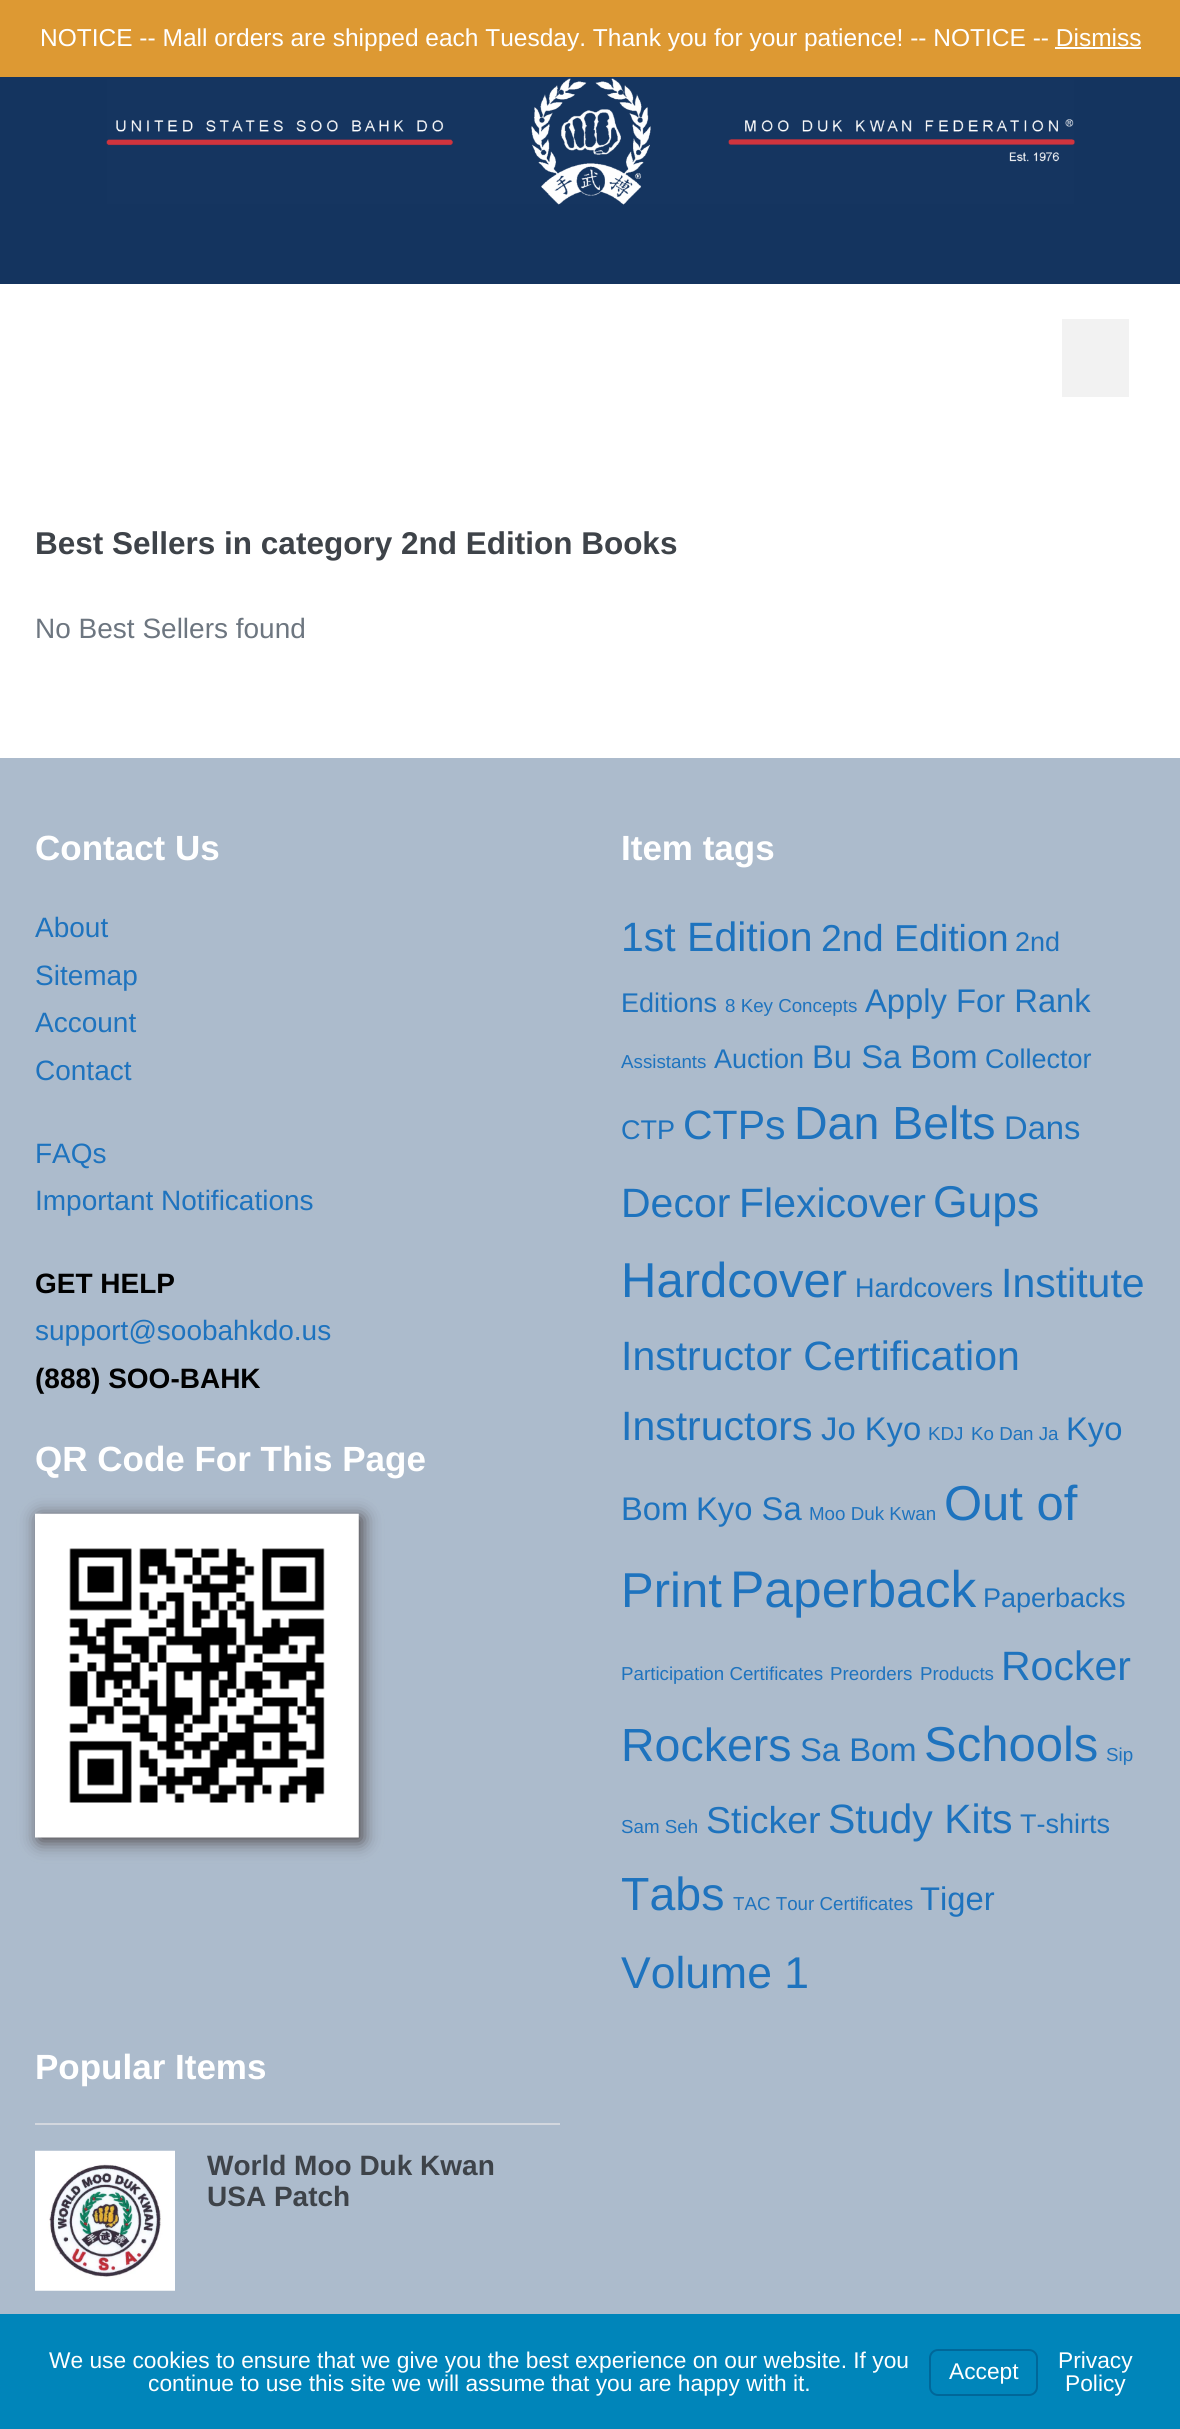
#include <cairo.h>
#include <math.h>
#include <stddef.h>

typedef struct { const char *family; double size; int italic, bold; unsigned color; } style_t;
static cairo_t *ctx;

static void ink(unsigned color) {
    cairo_set_source_rgb(ctx, (color >> 16) / 255.0, (color >> 8 & 255) / 255.0, (color & 255) / 255.0);
}

static void write(double x, double y, const char *s, const style_t *st) {
    cairo_select_font_face(ctx, st->family, st->italic ? CAIRO_FONT_SLANT_ITALIC : CAIRO_FONT_SLANT_NORMAL,
        st->bold ? CAIRO_FONT_WEIGHT_BOLD : CAIRO_FONT_WEIGHT_NORMAL);
    cairo_set_font_size(ctx, st->size);
    ink(st->color);
    cairo_move_to(ctx, x, y);
    cairo_show_text(ctx, s);
}

static void block(double x, double y, double w, double h, unsigned color) {
    ink(color);
    cairo_rectangle(ctx, x, y, w, h);
    cairo_fill(ctx);
}

static void round_path(double x, double y, double w, double h, double r) {
    cairo_new_sub_path(ctx);
    cairo_arc(ctx, x + w - r, y + h - r, r, 0, M_PI / 2);
    cairo_arc(ctx, x + r, y + h - r, r, M_PI / 2, M_PI);
    cairo_arc(ctx, x + r, y + r, r, M_PI, 1.5 * M_PI);
    cairo_arc(ctx, x + w - r, y + r, r, 1.5 * M_PI, 2 * M_PI);
    cairo_close_path(ctx);
}

static void blur_box(double x, double y, double w, double h, double r, double blur, double alpha) {
    cairo_push_group_with_content(ctx, CAIRO_CONTENT_ALPHA);
    cairo_set_operator(ctx, CAIRO_OPERATOR_SOURCE);
    for (int i = 15; i >= -15 && fmin(w, h) + blur * i / 3 > 0; i -= 2) {
        double e = blur * i / 6;
        cairo_set_source_rgba(ctx, 0, 0, 0, alpha * erfc((i - 1) / 8.5) / 2);
        round_path(x - e, y - e, w + 2 * e, h + 2 * e, fmax(0, fmin(r + e + blur * .6, fmin(w, h) / 2 + e)));
        cairo_fill(ctx);
    }
    cairo_pattern_t *soft = cairo_pop_group(ctx);
    cairo_mask(ctx, soft);
    cairo_pattern_destroy(soft);
}

static void paste(const char *path, double x, double y, double w, double h) {
    cairo_surface_t *image = cairo_image_surface_create_from_png(path);
    cairo_save(ctx);
    cairo_set_source_surface(ctx, image, x, y);
    cairo_rectangle(ctx, x, y, w, h);
    cairo_fill(ctx);
    cairo_restore(ctx);
    cairo_surface_destroy(image);
}

static const style_t s1 = {"Liberation Sans", 24.5, 0, 0, 0xffffff};
static const style_t s2 = {"Liberation Sans", 31.5, 0, 1, 0x3e4349};
static const style_t s3 = {"Liberation Sans", 28, 0, 0, 0x6d7680};
static const style_t s4 = {"Liberation Sans", 35, 0, 1, 0xffffff};
static const style_t s5 = {"Liberation Sans", 28, 0, 0, 0x1e73be};
static const style_t s6 = {"Liberation Sans", 28, 0, 1, 0x000000};
static const style_t s7 = {"Liberation Sans", 41, 0, 0, 0x1e73be};
static const style_t s8 = {"Liberation Sans", 37.5, 0, 0, 0x1e73be};
static const style_t s9 = {"Liberation Sans", 27, 0, 0, 0x1e73be};
static const style_t s10 = {"Liberation Sans", 18.75, 0, 0, 0x1e73be};
static const style_t s11 = {"Liberation Sans", 32.75, 0, 0, 0x1e73be};
static const style_t s12 = {"Liberation Sans", 46.5, 0, 0, 0x1e73be};
static const style_t s13 = {"Liberation Sans", 44.5, 0, 0, 0x1e73be};
static const style_t s14 = {"Liberation Sans", 49, 0, 0, 0x1e73be};
static const style_t s15 = {"Liberation Sans", 51.5, 0, 0, 0x1e73be};
static const style_t s16 = {"Liberation Sans", 28, 0, 1, 0x3e4349};
static const style_t s17 = {"Liberation Sans", 22.75, 0, 0, 0xffffff};

int main(void) {
    cairo_surface_t *surface = cairo_image_surface_create(CAIRO_FORMAT_RGB24, 1180, 2429);
    ctx = cairo_create(surface);
    cairo_font_options_t *options = cairo_font_options_create();
    cairo_font_options_set_hint_metrics(options, CAIRO_HINT_METRICS_OFF);
    cairo_font_options_set_hint_style(options, CAIRO_HINT_STYLE_NONE);
    cairo_set_font_options(ctx, options);
    cairo_set_miter_limit(ctx, 4);
    ink(0xffffff);
    cairo_paint(ctx);
    block(0, 0, 1180, 77, 0xdd9933);
    write(40, 46, "NOTICE -- Mall orders are shipped each Tuesday. Thank you for your patience! -- NOTICE -- Dismiss", &s1);
    block(1055, 47, 86, 2, 0xffffff);
    block(0, 77, 1180, 207, 0x14345f);
    paste("pic1.png", 106, 78, 969, 127);
    block(1062, 319, 67, 78, 0xf2f2f2);
    write(35, 554, "Best Sellers in category 2nd Edition Books", &s2);
    write(35, 638, "No Best Sellers found", &s3);
    block(0, 758, 1180, 1556, 0xacbbcc);
    write(35, 860, "Contact Us", &s4);
    write(35, 937, "About", &s5);
    write(35, 985, "Sitemap", &s5);
    write(35, 1032, "Account", &s5);
    write(35, 1080, "Contact", &s5);
    write(35, 1163, "FAQs", &s5);
    write(35, 1210, "Important Notifications", &s5);
    write(35, 1293, "GET HELP", &s6);
    write(35, 1340, "support@soobahkdo.us", &s5);
    write(35, 1388, "(888) SOO-BAHK", &s6);
    write(35, 1471, "QR Code For This Page", &s4);
    ink(0x4a4242);
    blur_box(39, 1517, 323, 324, 0, 9, 1);
    paste("pic2.png", 35, 1513, 324, 325);
    write(621, 860, "Item tags", &s4);
    write(621, 951, "1st Edition", &s7);
    write(821, 951, "2nd Edition", &s8);
    write(1015, 951, "2nd", &s9);
    write(621, 1012, "Editions", &s9);
    write(725, 1012, "8 Key Concepts", &s10);
    write(865, 1012, "Apply For Rank", &s11);
    write(621, 1068, "Assistants", &s10);
    write(714, 1068, "Auction", &s9);
    write(812, 1068, "Bu Sa Bom", &s11);
    write(985, 1068, "Collector", &s9);
    write(621, 1139, "CTP", &s9);
    write(683, 1139, "CTPs", &s7);
    write(794, 1139, "Dan Belts", &s12);
    write(1004, 1139, "Dans", &s11);
    write(621, 1217, "Decor", &s7);
    write(739, 1217, "Flexicover", &s7);
    write(933, 1217, "Gups", &s13);
    write(621, 1297, "Hardcover", &s14);
    write(855, 1297, "Hardcovers", &s9);
    write(1001, 1297, "Institute", &s7);
    write(621, 1370, "Instructor Certification", &s7);
    write(621, 1440, "Instructors", &s7);
    write(821, 1440, "Jo Kyo", &s11);
    write(928, 1440, "KDJ", &s10);
    write(971, 1440, "Ko Dan Ja", &s10);
    write(1066, 1440, "Kyo", &s11);
    write(621, 1520, "Bom", &s11);
    write(696, 1520, "Kyo Sa", &s11);
    write(809, 1520, "Moo Duk Kwan", &s10);
    write(944, 1520, "Out of", &s14);
    write(621, 1607, "Print", &s14);
    write(730, 1607, "Paperback", &s15);
    write(983, 1607, "Paperbacks", &s9);
    write(621, 1680, "Participation Certificates", &s10);
    write(830, 1680, "Preorders", &s10);
    write(920, 1680, "Products", &s10);
    write(1001, 1680, "Rocker", &s7);
    write(621, 1761, "Rockers", &s12);
    write(800, 1761, "Sa Bom", &s11);
    write(924, 1761, "Schools", &s14);
    write(1106, 1761, "Sip", &s10);
    write(621, 1833, "Sam Seh", &s10);
    write(706, 1833, "Sticker", &s8);
    write(828, 1833, "Study Kits", &s7);
    write(1020, 1833, "T-shirts", &s9);
    write(621, 1910, "Tabs", &s12);
    write(733, 1910, "TAC Tour Certificates", &s10);
    write(920, 1910, "Tiger", &s11);
    write(621, 1988, "Volume 1", &s13);
    write(35, 2079, "Popular Items", &s4);
    block(35, 2123, 525, 2, 0xd3d7de);
    paste("pic3.png", 35, 2150, 140, 141);
    write(207, 2175, "World Moo Duk Kwan", &s16);
    write(207, 2206, "USA Patch", &s16);
    block(0, 2314, 1180, 115, 0x0085ba);
    write(49, 2368, "We use cookies to ensure that we give you the best experience on our website. If you", &s17);
    write(148, 2391, "continue to use this site we will assume that you are happy with it.", &s17);
    round_path(930, 2350, 107, 45, 8);
    ink(0x006799);
    cairo_stroke(ctx);
    write(949, 2379, "Accept", &s17);
    write(1058, 2368, "Privacy", &s17);
    write(1065, 2391, "Policy", &s17);
    cairo_surface_write_to_png(surface, "screenshot.png");
    cairo_font_options_destroy(options);
    cairo_destroy(ctx);
    cairo_surface_destroy(surface);
    return 0;
}
